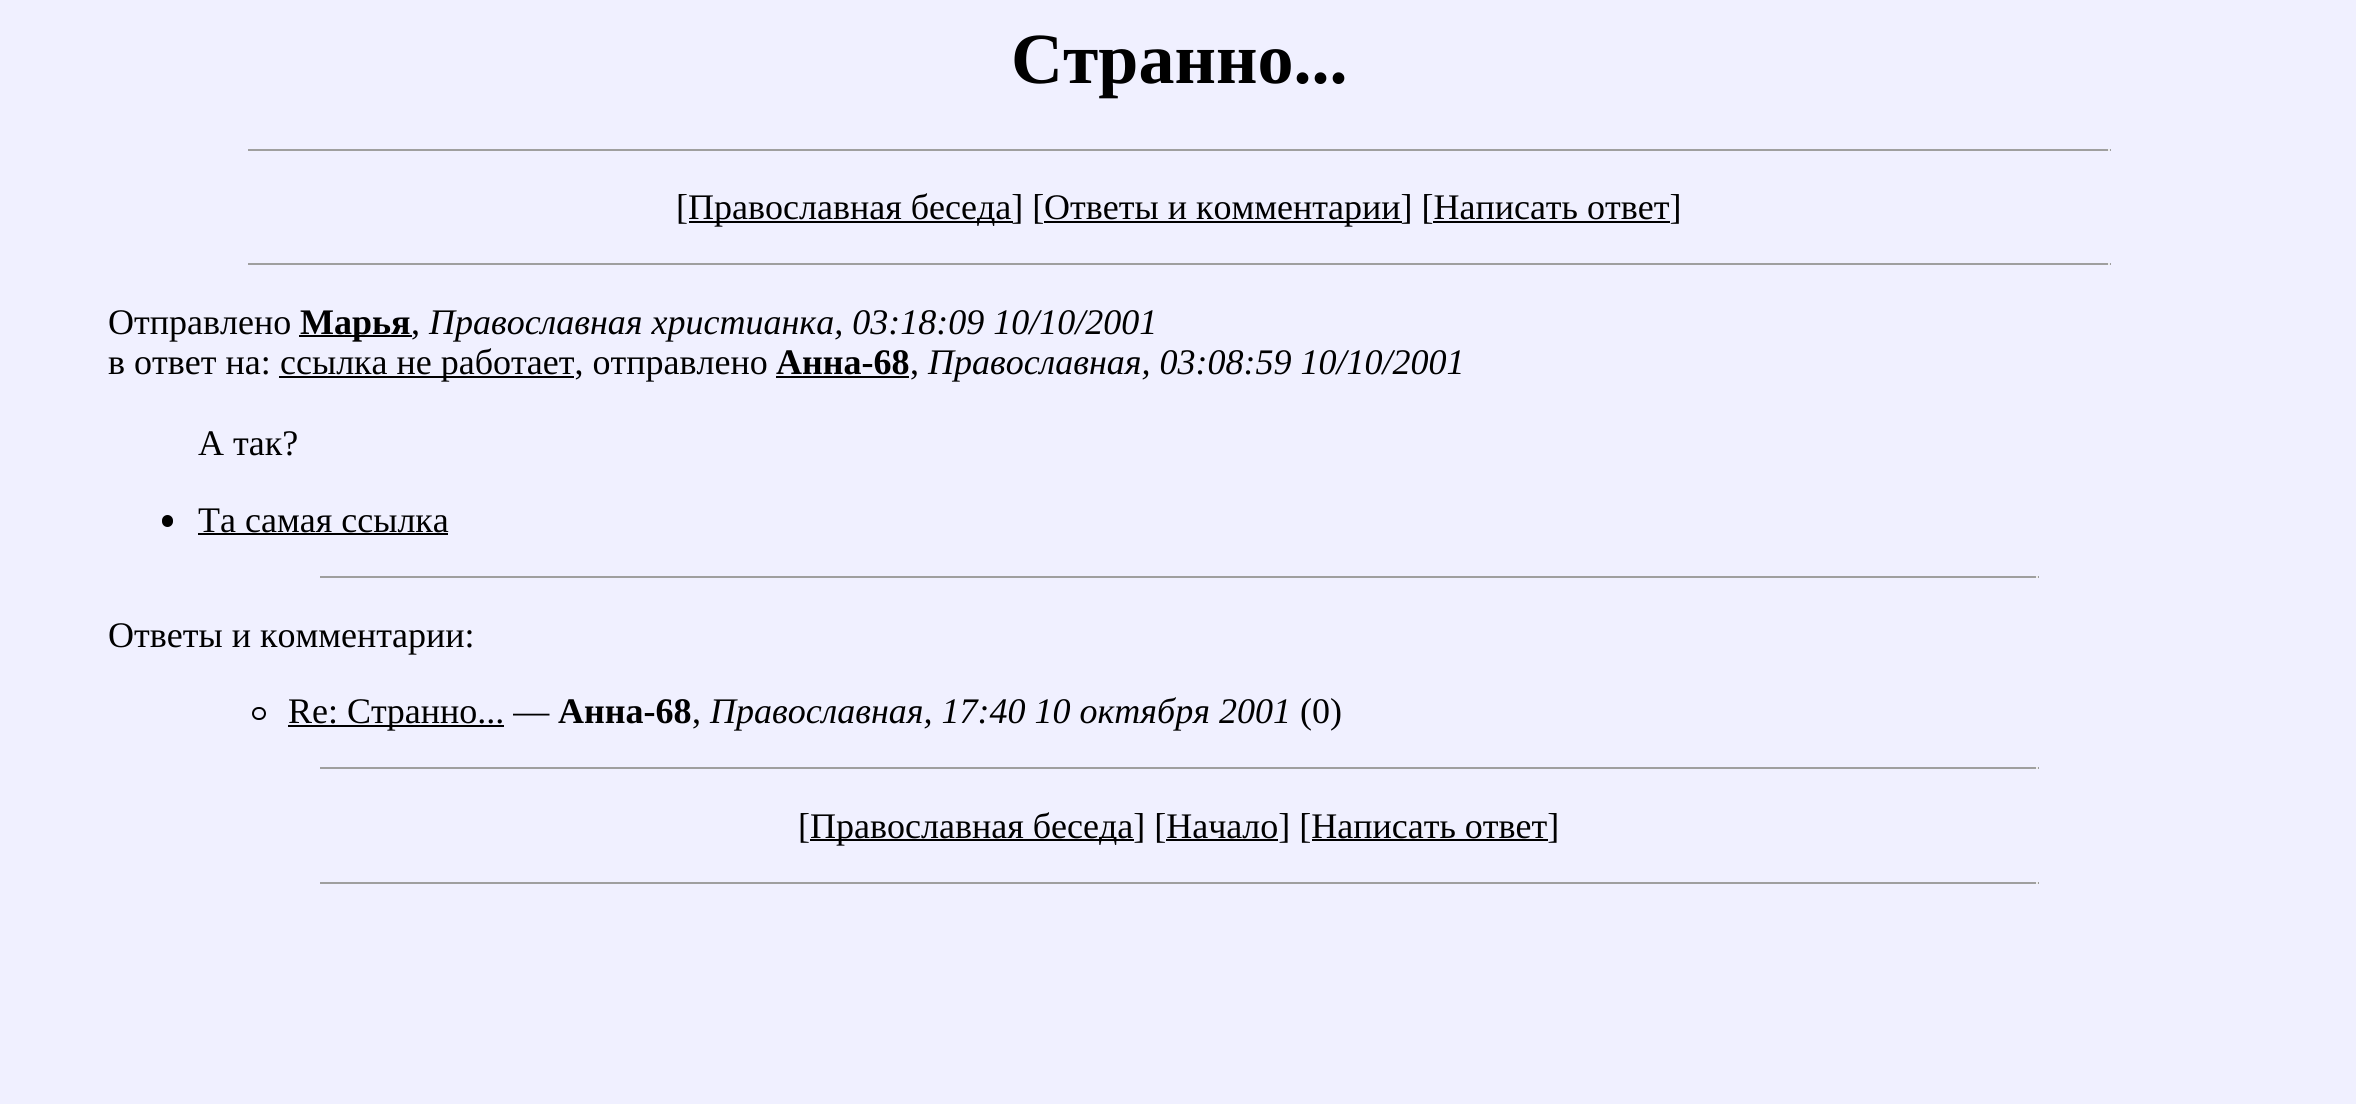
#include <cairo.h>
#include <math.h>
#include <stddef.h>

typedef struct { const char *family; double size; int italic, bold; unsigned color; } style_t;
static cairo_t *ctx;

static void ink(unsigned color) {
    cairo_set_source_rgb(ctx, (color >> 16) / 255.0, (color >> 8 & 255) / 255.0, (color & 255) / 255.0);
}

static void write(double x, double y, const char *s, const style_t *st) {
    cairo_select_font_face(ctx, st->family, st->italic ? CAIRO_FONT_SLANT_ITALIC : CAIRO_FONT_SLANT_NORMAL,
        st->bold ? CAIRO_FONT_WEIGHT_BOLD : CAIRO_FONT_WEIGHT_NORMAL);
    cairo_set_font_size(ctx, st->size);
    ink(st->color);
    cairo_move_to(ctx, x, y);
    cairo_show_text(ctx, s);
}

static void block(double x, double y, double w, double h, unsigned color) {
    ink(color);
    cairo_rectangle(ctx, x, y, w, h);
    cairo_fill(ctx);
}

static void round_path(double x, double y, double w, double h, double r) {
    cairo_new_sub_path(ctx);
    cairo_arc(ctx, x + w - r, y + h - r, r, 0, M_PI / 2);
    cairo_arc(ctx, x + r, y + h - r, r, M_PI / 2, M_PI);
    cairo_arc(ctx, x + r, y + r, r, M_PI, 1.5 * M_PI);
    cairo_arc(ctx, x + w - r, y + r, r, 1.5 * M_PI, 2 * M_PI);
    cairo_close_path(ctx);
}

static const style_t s1 = {"Liberation Serif", 72, 0, 1, 0x000000};
static const style_t s2 = {"Liberation Serif", 36, 0, 0, 0x000000};
static const style_t s3 = {"Liberation Serif", 36, 0, 1, 0x000000};
static const style_t s4 = {"Liberation Serif", 36, 1, 0, 0x000000};

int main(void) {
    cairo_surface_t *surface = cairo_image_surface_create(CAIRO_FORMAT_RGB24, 2356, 1104);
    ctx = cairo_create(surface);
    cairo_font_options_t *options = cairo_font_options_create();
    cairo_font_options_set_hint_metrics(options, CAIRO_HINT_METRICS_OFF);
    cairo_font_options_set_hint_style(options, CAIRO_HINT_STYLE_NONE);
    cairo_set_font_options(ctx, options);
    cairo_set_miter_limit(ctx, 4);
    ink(0xf0f0ff);
    cairo_paint(ctx);
    write(1011, 83, "Странно...", &s1);
    block(248, 149, 1863, 2, 0x9f9f9f);
    block(2108, 149, 2, 2, 0xeeeeee);
    write(676, 219, "[", &s2);
    block(689, 221, 324, 2, 0x000000);
    write(688, 219, "Православная беседа] [", &s2);
    block(1044, 221, 358, 2, 0x000000);
    write(1044, 219, "Ответы и комментарии] [Написать ответ]", &s2);
    block(1433, 221, 237, 2, 0x000000);
    block(248, 263, 1863, 2, 0x9f9f9f);
    block(2108, 263, 2, 2, 0xeeeeee);
    write(108, 334, "Отправлено", &s2);
    block(299, 335, 113, 2, 0x000000);
    write(300, 334, "Марья", &s3);
    write(411, 334, ",", &s2);
    write(429, 334, "Православная христианка, 03:18:09 10/10/2001", &s4);
    write(108, 374, "в ответ на:", &s2);
    block(279, 376, 295, 2, 0x000000);
    write(280, 374, "ссылка не работает, отправлено", &s2);
    write(776, 374, "Анна-68", &s3);
    block(776, 376, 133, 2, 0x000000);
    write(910, 374, ",", &s2);
    write(928, 374, "Православная, 03:08:59 10/10/2001", &s4);
    write(198, 455, "А так?", &s2);
    round_path(162, 515, 11, 12, 5.5);
    cairo_fill(ctx);
    write(198, 532, "Та самая ссылка", &s2);
    block(198, 533, 250, 2, 0x000000);
    block(320, 576, 1719, 2, 0x9f9f9f);
    block(2036, 576, 2, 2, 0xeeeeee);
    write(108, 647, "Ответы и комментарии:", &s2);
    round_path(253, 708, 12, 11, 5.5);
    cairo_stroke(ctx);
    block(288, 725, 216, 2, 0x000000);
    write(288, 723, "Re: Странно... —", &s2);
    write(558, 723, "Анна-68", &s3);
    write(710, 723, "Православная, 17:40 10 октября 2001", &s4);
    write(1300, 723, "(0)", &s2);
    write(692, 723, ",", &s2);
    block(320, 767, 1719, 2, 0x9f9f9f);
    block(2036, 767, 2, 2, 0xeeeeee);
    write(798, 838, "[", &s2);
    block(810, 839, 324, 2, 0x000000);
    write(810, 838, "Православная беседа] [Начало] [Написать ответ]", &s2);
    block(1166, 839, 112, 2, 0x000000);
    block(1312, 839, 236, 2, 0x000000);
    block(320, 882, 1719, 2, 0x9f9f9f);
    block(2036, 882, 2, 2, 0xeeeeee);
    cairo_surface_write_to_png(surface, "screenshot.png");
    cairo_font_options_destroy(options);
    cairo_destroy(ctx);
    cairo_surface_destroy(surface);
    return 0;
}
